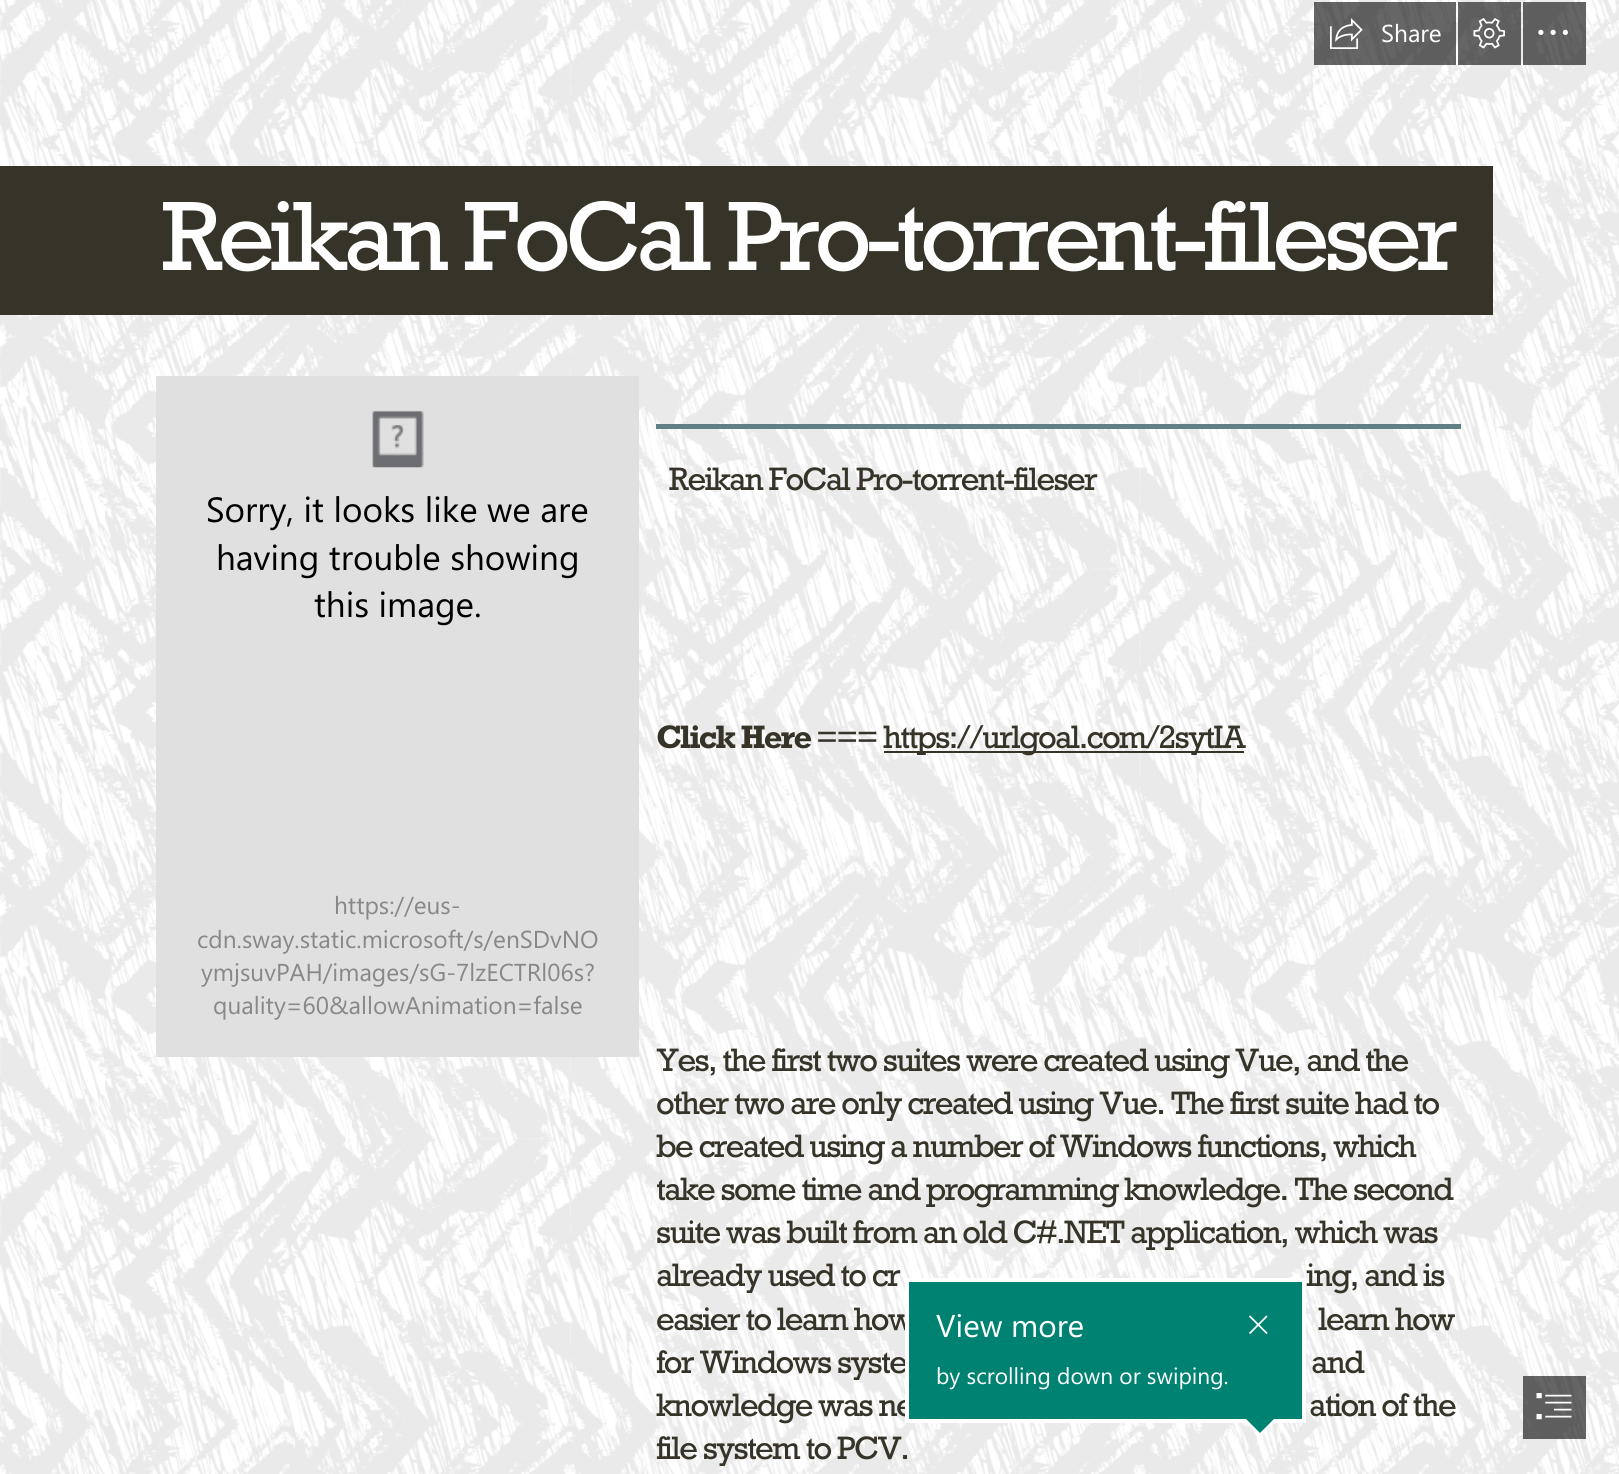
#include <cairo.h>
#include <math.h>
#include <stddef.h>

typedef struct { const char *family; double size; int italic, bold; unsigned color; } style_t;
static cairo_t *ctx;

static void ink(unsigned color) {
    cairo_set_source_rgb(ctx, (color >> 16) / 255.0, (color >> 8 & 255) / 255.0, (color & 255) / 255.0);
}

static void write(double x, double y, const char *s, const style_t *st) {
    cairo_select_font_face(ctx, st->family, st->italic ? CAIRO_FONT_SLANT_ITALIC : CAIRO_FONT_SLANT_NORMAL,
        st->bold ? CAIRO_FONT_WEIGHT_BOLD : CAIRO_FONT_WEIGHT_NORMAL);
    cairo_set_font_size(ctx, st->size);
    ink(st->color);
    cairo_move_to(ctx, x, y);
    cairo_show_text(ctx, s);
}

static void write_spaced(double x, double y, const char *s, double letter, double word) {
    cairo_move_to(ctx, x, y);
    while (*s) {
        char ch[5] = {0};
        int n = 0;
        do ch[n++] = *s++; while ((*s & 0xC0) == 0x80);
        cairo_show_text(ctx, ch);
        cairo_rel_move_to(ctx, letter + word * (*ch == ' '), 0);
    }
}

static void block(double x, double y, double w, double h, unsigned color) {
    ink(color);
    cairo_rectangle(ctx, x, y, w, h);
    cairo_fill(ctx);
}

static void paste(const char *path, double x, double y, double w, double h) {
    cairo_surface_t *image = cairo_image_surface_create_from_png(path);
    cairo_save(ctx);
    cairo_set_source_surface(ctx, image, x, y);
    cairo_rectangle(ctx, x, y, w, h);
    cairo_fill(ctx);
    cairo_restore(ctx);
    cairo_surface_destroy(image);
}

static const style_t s1 = {"Segoe UI", 24.5, 0, 0, 0xffffff};
static const style_t s2 = {"Segoe UI", 35, 0, 0, 0x000000};
static const style_t s3 = {"Segoe UI", 24.5, 0, 0, 0x888888};
static const style_t s4 = {"Segoe UI", 31.5, 0, 0, 0xffffff};
static const style_t s5 = {"Segoe UI", 22.75, 0, 0, 0xffffff};

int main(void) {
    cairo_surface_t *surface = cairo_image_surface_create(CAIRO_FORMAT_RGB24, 1619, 1474);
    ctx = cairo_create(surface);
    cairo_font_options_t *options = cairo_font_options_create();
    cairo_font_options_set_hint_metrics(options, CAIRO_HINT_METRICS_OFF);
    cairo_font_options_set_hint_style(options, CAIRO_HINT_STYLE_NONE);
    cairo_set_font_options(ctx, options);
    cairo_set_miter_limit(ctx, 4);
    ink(0xeaeaea);
    cairo_paint(ctx);
    paste("pic4.png", 0, 0, 1619, 1474);
    cairo_set_source_rgba(ctx, 0, 0, 0, 0.6);
    cairo_rectangle(ctx, 1314, 2, 142, 63);
    cairo_fill(ctx);
    paste("pic1.png", 1330, 18, 33, 31);
    write(1381, 42, "Share", &s1);
    cairo_set_source_rgba(ctx, 0, 0, 0, 0.6);
    cairo_rectangle(ctx, 1458, 2, 63, 63);
    cairo_fill(ctx);
    paste("pic2.png", 1473, 18, 32, 31);
    cairo_rectangle(ctx, 1523, 2, 63, 63);
    cairo_fill(ctx);
    paste("pic3.png", 1538, 29, 30, 6);
    block(0, 166, 1493, 149, 0x363328);
    cairo_select_font_face(ctx, "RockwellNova", CAIRO_FONT_SLANT_NORMAL, CAIRO_FONT_WEIGHT_NORMAL);
    cairo_set_font_size(ctx, 92.4);
    ink(0xffffff);
    write_spaced(162, 270, "Reikan FoCal Pro-torrent-fileser", -5.65, 0);
    block(156, 376, 483, 681, 0xe0e0e0);
    paste("pic5.png", 372, 410, 52, 58);
    write(206, 522, "Sorry, it looks like we are", &s2);
    write(216, 570, "having trouble showing", &s2);
    write(314, 617, "this image.", &s2);
    write(334, 914, "https://eus-", &s3);
    write(197, 948, "cdn.sway.static.microsoft/s/enSDvNO", &s3);
    write(201, 981, "ymjsuvPAH/images/sG-7lzECTRl06s?", &s3);
    write(213, 1014, "quality=60&allowAnimation=false", &s3);
    block(656, 424, 805, 5, 0x618084);
    cairo_select_font_face(ctx, "RockwellNova", CAIRO_FONT_SLANT_NORMAL, CAIRO_FONT_WEIGHT_NORMAL);
    cairo_set_font_size(ctx, 30.4);
    ink(0x363328);
    write_spaced(669, 490, "Reikan FoCal Pro-torrent-fileser", -1.78, 0);
    cairo_select_font_face(ctx, "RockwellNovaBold", CAIRO_FONT_SLANT_NORMAL, CAIRO_FONT_WEIGHT_BOLD);
    write_spaced(656, 748, "Click Here", -1.78, 0);
    cairo_select_font_face(ctx, "RockwellNova", CAIRO_FONT_SLANT_NORMAL, CAIRO_FONT_WEIGHT_NORMAL);
    write_spaced(816, 748, "===", -1.78, 0);
    block(884, 751, 360, 2, 0x363328);
    write_spaced(883, 748, "https://urlgoal.com/2sytIA", -1.78, 0);
    write_spaced(656, 1071, "Yes, the first two suites were created using Vue, and the", -1.78, 0);
    write_spaced(656, 1114, "other two are only created using Vue. The first suite had to", -1.78, 0);
    write_spaced(656, 1157, "be created using a number of Windows functions, which", -1.78, 0);
    write_spaced(656, 1200, "take some time and programming knowledge. The second", -1.78, 0);
    write_spaced(656, 1243, "suite was built from an old C#.NET application, which was", -1.78, 0);
    write_spaced(656, 1286, "already used to cr", -1.78, 0);
    write_spaced(1306, 1286, "ing, and is", -1.78, 0);
    write_spaced(656, 1330, "easier to learn how", -1.78, 0);
    write_spaced(1318, 1330, "learn how", -1.78, 0);
    write_spaced(656, 1373, "for Windows syste", -1.78, 0);
    write_spaced(1311, 1373, "and", -1.78, 0);
    write_spaced(656, 1416, "knowledge was ne", -1.78, 0);
    write_spaced(1309, 1416, "ation of the", -1.78, 0);
    write_spaced(656, 1459, "file system to PCV.", -1.78, 0);
    ink(0x008272);
    cairo_rectangle(ctx, 907, 1280, 397, 141);
    cairo_fill_preserve(ctx);
    ink(0xffffff);
    cairo_set_line_width(ctx, 4);
    cairo_stroke(ctx);
    write(936, 1337, "View more", &s4);
    write(936, 1384, "by scrolling down or swiping.", &s5);
    paste("pic6.png", 1249, 1315, 19, 19);
    cairo_new_path(ctx);
    cairo_move_to(ctx, 1242.5, 1419);
    cairo_line_to(ctx, 1277.5, 1419);
    cairo_line_to(ctx, 1260, 1437);
    cairo_close_path(ctx);
    cairo_fill(ctx);
    ink(0x008272);
    cairo_new_path(ctx);
    cairo_move_to(ctx, 1246, 1419);
    cairo_line_to(ctx, 1274, 1419);
    cairo_line_to(ctx, 1260, 1433);
    cairo_close_path(ctx);
    cairo_fill(ctx);
    cairo_set_source_rgba(ctx, 0, 0, 0, 0.6);
    cairo_rectangle(ctx, 1523, 1376, 63, 63);
    cairo_fill(ctx);
    paste("pic7.png", 1536, 1393, 36, 27);
    cairo_surface_write_to_png(surface, "screenshot.png");
    cairo_font_options_destroy(options);
    cairo_destroy(ctx);
    cairo_surface_destroy(surface);
    return 0;
}
